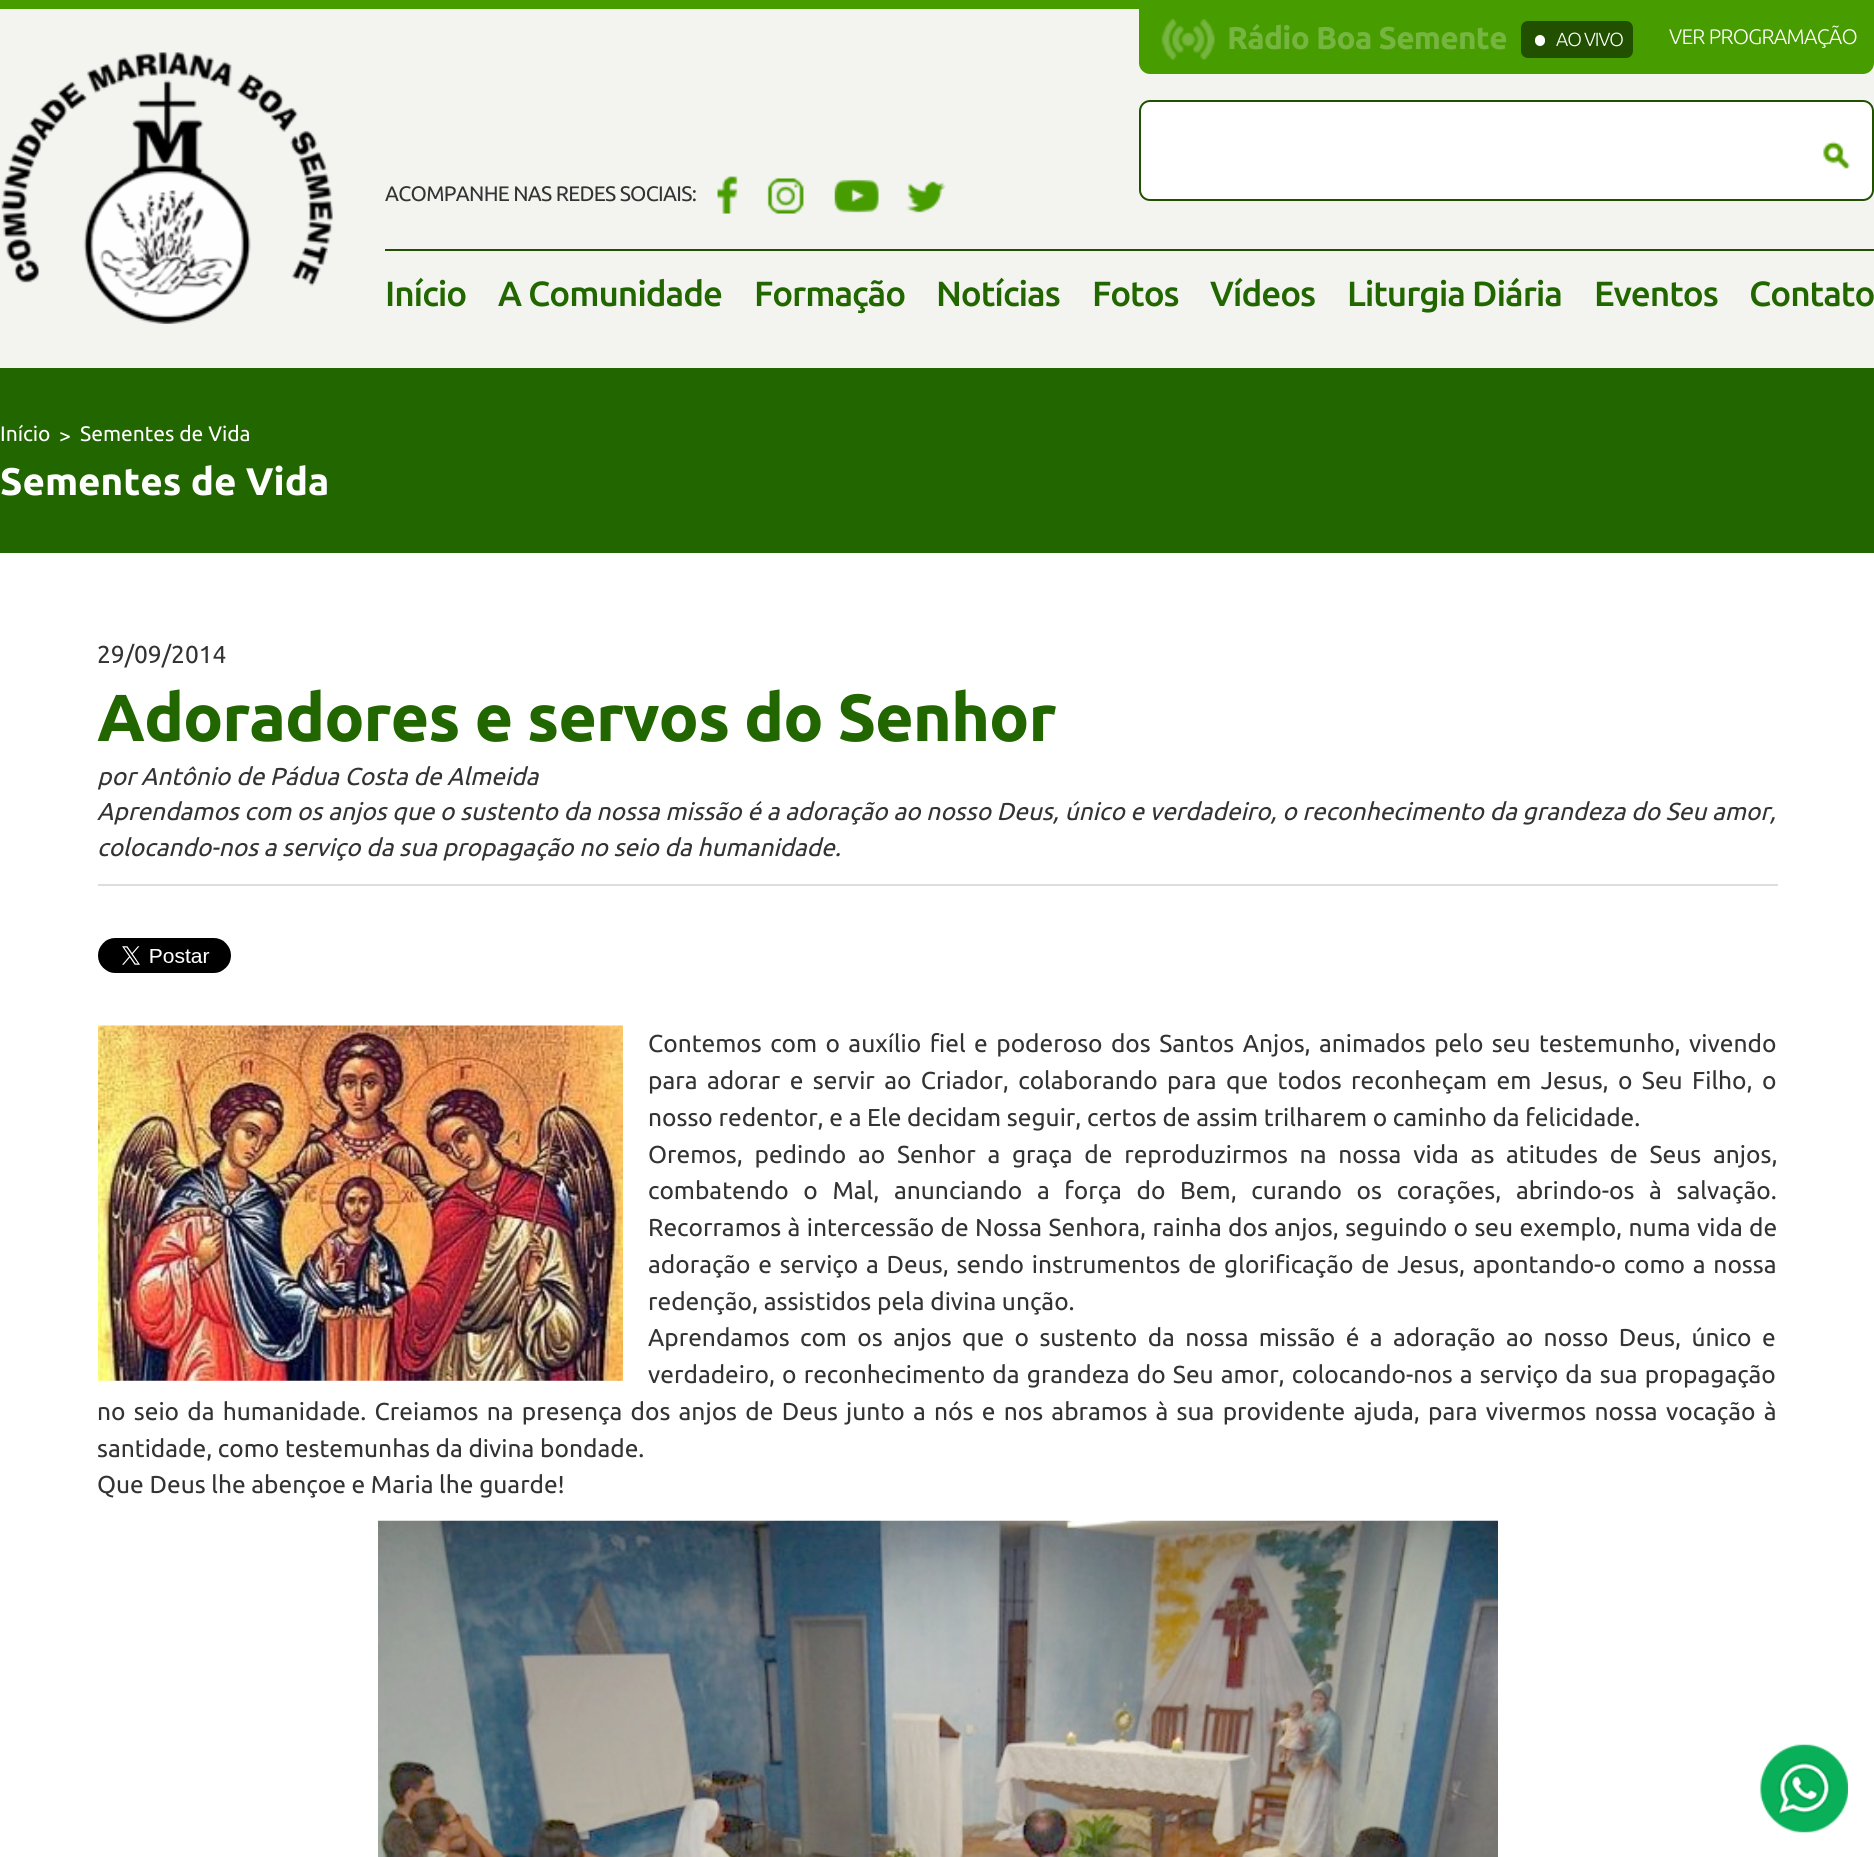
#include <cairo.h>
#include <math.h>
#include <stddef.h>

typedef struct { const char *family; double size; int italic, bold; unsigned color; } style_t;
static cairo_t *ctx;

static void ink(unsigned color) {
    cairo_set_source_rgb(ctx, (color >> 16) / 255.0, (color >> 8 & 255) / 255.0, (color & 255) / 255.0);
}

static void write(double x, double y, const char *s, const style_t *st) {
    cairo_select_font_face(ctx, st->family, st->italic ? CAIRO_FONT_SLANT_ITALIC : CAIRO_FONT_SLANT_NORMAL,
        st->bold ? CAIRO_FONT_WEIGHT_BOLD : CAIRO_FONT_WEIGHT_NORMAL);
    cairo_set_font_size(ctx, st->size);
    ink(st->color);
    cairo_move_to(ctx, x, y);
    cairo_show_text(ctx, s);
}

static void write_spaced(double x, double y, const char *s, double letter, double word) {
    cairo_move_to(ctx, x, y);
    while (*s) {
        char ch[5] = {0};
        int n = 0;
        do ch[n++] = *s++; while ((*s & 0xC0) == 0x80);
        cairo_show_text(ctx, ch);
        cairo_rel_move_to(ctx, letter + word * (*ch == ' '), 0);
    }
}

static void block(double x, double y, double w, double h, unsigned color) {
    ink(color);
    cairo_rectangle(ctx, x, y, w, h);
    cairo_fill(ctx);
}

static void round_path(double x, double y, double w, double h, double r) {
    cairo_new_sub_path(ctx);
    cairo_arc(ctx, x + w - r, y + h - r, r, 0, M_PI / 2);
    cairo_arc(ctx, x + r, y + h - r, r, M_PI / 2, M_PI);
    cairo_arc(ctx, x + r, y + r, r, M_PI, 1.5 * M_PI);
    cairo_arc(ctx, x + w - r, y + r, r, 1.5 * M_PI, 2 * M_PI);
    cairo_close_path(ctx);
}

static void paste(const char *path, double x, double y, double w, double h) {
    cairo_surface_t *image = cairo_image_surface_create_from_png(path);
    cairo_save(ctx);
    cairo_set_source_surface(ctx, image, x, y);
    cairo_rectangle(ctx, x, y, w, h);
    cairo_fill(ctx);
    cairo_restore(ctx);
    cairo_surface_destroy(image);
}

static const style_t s1 = {"Ubuntu", 21, 0, 0, 0xffffff};
static const style_t s2 = {"Ubuntu", 38.5, 0, 1, 0xffffff};
static const style_t s3 = {"Ubuntu", 24.5, 0, 0, 0x333333};
static const style_t s4 = {"Ubuntu", 24.5, 1, 0, 0x333333};

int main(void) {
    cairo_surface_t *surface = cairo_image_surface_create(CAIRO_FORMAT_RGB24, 1874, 1857);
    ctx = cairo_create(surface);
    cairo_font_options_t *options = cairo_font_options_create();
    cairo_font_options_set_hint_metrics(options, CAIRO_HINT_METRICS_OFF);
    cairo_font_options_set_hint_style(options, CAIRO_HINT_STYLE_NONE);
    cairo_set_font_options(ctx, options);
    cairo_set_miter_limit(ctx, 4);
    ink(0xffffff);
    cairo_paint(ctx);
    block(0, 9, 1874, 359, 0xf3f3f0);
    block(0, 0, 1874, 9, 0x479c00);
    paste("pic1.png", 1, 52, 332, 272);
    cairo_new_path(ctx);
    cairo_move_to(ctx, 1139, 9);
    cairo_line_to(ctx, 1874, 9);
    cairo_line_to(ctx, 1874, 63);
    cairo_curve_to(ctx, 1874, 69, 1869, 74, 1863, 74);
    cairo_line_to(ctx, 1150, 74);
    cairo_curve_to(ctx, 1144, 74, 1139, 69, 1139, 63);
    cairo_close_path(ctx);
    cairo_fill(ctx);
    paste("pic2.png", 1161, 19, 54, 41);
    cairo_select_font_face(ctx, "Ubuntu", CAIRO_FONT_SLANT_NORMAL, CAIRO_FONT_WEIGHT_BOLD);
    cairo_set_font_size(ctx, 31.5);
    ink(0x75b540);
    write_spaced(1227, 49, "Rádio Boa Semente", -0.7, 0);
    ink(0x215000);
    round_path(1521, 21, 112, 37, 7);
    cairo_fill(ctx);
    ink(0xffffff);
    round_path(1535, 35, 10, 11, 5);
    cairo_fill(ctx);
    cairo_select_font_face(ctx, "Ubuntu Light", CAIRO_FONT_SLANT_NORMAL, CAIRO_FONT_WEIGHT_NORMAL);
    cairo_set_font_size(ctx, 19);
    write_spaced(1556, 46, "AO VIVO", -1.05, 0);
    cairo_set_font_size(ctx, 21);
    write_spaced(1669, 44, "VER PROGRAMAÇÃO", -0.7, 0);
    round_path(1140, 101, 733, 99, 10);
    cairo_fill_preserve(ctx);
    ink(0x215000);
    cairo_stroke(ctx);
    paste("pic3.png", 1823, 141, 28, 28);
    cairo_select_font_face(ctx, "Ubuntu", CAIRO_FONT_SLANT_NORMAL, CAIRO_FONT_WEIGHT_NORMAL);
    ink(0x333333);
    write_spaced(385, 201, "ACOMPANHE NAS REDES SOCIAIS:", -0.7, 0);
    paste("pic4.png", 717, 176, 21, 38);
    paste("pic5.png", 767, 178, 37, 36);
    paste("pic6.png", 834, 179, 45, 34);
    paste("pic7.png", 906, 181, 40, 32);
    block(385, 249, 1489, 2, 0x215000);
    cairo_select_font_face(ctx, "Ubuntu Medium", CAIRO_FONT_SLANT_NORMAL, CAIRO_FONT_WEIGHT_NORMAL);
    cairo_set_font_size(ctx, 35);
    ink(0x226600);
    write_spaced(385, 306, "Início", -1.05, 0);
    write_spaced(498, 306, "A Comunidade", -1.05, 0);
    write_spaced(754, 306, "Formação", -1.05, 0);
    write_spaced(936, 306, "Notícias", -1.05, 0);
    write_spaced(1092, 306, "Fotos", -1.05, 0);
    write_spaced(1210, 306, "Vídeos", -1.05, 0);
    write_spaced(1347, 306, "Liturgia Diária", -1.05, 0);
    write_spaced(1594, 306, "Eventos", -1.05, 0);
    write_spaced(1749, 306, "Contato", -1.05, 0);
    block(0, 368, 1874, 185, 0x226600);
    write(0, 441, "Início", &s1);
    write(59, 443, ">", &s1);
    write(80, 441, "Sementes de Vida", &s1);
    write(0, 495, "Sementes de Vida", &s2);
    write(97, 663, "29/09/2014", &s3);
    cairo_select_font_face(ctx, "Ubuntu", CAIRO_FONT_SLANT_NORMAL, CAIRO_FONT_WEIGHT_BOLD);
    cairo_set_font_size(ctx, 66.5);
    ink(0x226600);
    write_spaced(97, 741, "Adoradores e servos do Senhor", -1.05, 0);
    write(97, 785, "por Antônio de Pádua Costa de Almeida", &s4);
    write(97, 820, "Aprendamos com os anjos que o sustento da nossa missão é a adoração ao nosso Deus, único e verdadeiro, o reconhecimento da grandeza do Seu amor,", &s4);
    write(97, 856, "colocando-nos a serviço da sua propagação no seio da humanidade.", &s4);
    block(98, 884, 1680, 2, 0xdadee0);
    paste("pic8.png", 98, 938, 133, 35);
    paste("pic9.png", 98, 1025, 525, 356);
    cairo_select_font_face(ctx, "Ubuntu", CAIRO_FONT_SLANT_NORMAL, CAIRO_FONT_WEIGHT_NORMAL);
    ink(0x333333);
    write_spaced(648, 1052, "Contemos com o auxílio fiel e poderoso dos Santos Anjos, animados pelo seu testemunho, vivendo", 0, 2.75);
    write_spaced(648, 1089, "para adorar e servir ao Criador, colaborando para que todos reconheçam em Jesus, o Seu Filho, o", 0, 3.75);
    write(648, 1126, "nosso redentor, e a Ele decidam seguir, certos de assim trilharem o caminho da felicidade.", &s3);
    write_spaced(648, 1163, "Oremos, pedindo ao Senhor a graça de reproduzirmos na nossa vida as atitudes de Seus anjos,", 0, 6.1);
    write_spaced(648, 1199, "combatendo o Mal, anunciando a força do Bem, curando os corações, abrindo-os à salvação.", 0, 9);
    write_spaced(648, 1236, "Recorramos à intercessão de Nossa Senhora, rainha dos anjos, seguindo o seu exemplo, numa vida de", 0, 0.75);
    write_spaced(648, 1273, "adoração e serviço a Deus, sendo instrumentos de glorificação de Jesus, apontando-o como a nossa", 0, 2.1);
    write(648, 1310, "redenção, assistidos pela divina unção.", &s3);
    write_spaced(648, 1346, "Aprendamos com os anjos que o sustento da nossa missão é a adoração ao nosso Deus, único e", 0, 4.75);
    write_spaced(648, 1383, "verdadeiro, o reconhecimento da grandeza do Seu amor, colocando-nos a serviço da sua propagação", 0, 1.5);
    write_spaced(97, 1420, "no seio da humanidade. Creiamos na presença dos anjos de Deus junto a nós e nos abramos à sua providente ajuda, para vivermos nossa vocação à", 0, 2.6);
    write(97, 1457, "santidade, como testemunhas da divina bondade.", &s3);
    write(97, 1493, "Que Deus lhe abençoe e Maria lhe guarde!", &s3);
    paste("pic10.png", 378, 1520, 1120, 337);
    paste("pic11.png", 1760, 1744, 88, 89);
    cairo_surface_write_to_png(surface, "screenshot.png");
    cairo_font_options_destroy(options);
    cairo_destroy(ctx);
    cairo_surface_destroy(surface);
    return 0;
}
